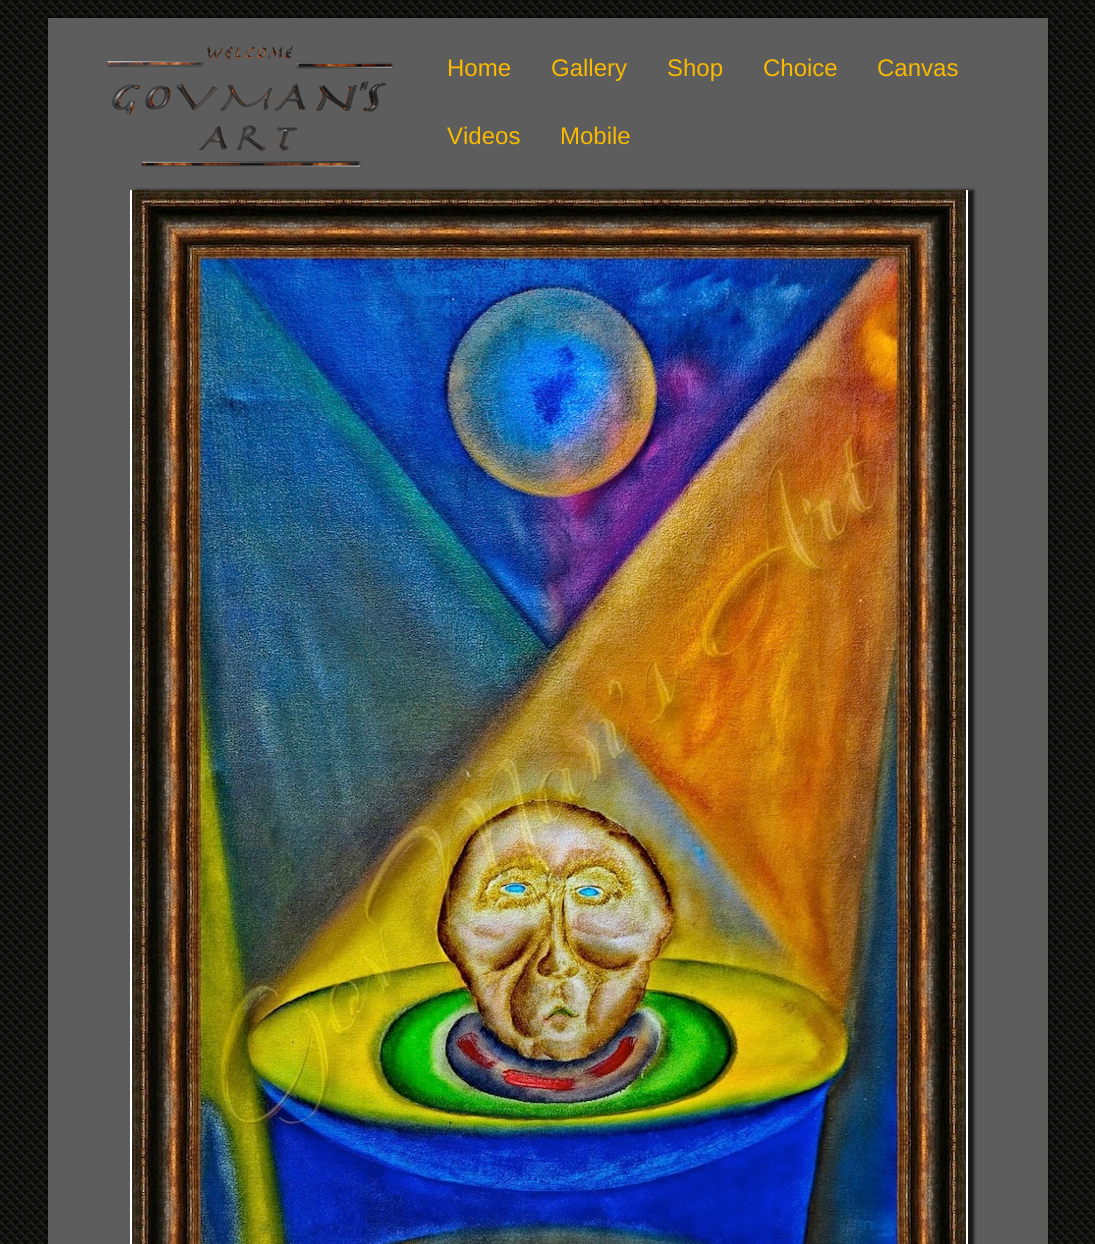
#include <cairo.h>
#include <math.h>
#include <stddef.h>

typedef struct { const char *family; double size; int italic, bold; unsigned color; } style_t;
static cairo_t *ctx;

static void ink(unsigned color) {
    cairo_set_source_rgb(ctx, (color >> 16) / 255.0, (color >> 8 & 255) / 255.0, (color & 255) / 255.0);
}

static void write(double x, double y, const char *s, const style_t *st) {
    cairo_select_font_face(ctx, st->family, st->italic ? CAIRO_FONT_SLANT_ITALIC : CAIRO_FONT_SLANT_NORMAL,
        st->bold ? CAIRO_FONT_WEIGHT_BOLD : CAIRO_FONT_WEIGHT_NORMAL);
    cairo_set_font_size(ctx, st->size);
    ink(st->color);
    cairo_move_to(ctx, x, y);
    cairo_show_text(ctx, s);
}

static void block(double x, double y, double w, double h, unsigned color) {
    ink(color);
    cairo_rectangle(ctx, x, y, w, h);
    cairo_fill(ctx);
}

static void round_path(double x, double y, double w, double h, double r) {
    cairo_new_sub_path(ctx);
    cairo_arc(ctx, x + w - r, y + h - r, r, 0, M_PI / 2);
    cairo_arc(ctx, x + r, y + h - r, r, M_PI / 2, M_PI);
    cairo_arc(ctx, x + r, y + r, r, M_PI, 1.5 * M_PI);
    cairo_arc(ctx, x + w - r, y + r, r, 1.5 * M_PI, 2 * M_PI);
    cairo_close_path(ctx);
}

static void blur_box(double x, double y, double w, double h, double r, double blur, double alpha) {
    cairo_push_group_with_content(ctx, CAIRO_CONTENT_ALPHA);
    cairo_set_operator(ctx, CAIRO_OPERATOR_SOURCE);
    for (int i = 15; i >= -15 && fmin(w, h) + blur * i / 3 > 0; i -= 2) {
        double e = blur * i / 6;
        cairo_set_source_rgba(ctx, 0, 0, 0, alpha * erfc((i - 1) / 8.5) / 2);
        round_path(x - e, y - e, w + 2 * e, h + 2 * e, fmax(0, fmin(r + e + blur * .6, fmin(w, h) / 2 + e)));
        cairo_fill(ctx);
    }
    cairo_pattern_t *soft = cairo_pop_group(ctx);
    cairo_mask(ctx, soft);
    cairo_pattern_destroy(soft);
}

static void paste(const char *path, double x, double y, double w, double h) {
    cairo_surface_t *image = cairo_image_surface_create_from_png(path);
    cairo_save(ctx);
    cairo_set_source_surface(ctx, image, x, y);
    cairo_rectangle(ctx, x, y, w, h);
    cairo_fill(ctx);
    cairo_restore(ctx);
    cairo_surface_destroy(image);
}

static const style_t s1 = {"Liberation Sans", 24, 0, 0, 0xf8b900};

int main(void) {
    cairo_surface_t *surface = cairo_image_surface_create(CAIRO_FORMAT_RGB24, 1095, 1244);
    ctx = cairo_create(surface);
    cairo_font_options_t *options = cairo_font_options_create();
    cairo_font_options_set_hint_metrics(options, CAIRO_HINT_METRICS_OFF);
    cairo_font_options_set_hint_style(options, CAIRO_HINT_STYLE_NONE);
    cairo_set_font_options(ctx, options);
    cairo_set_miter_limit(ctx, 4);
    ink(0xffffff);
    cairo_paint(ctx);
    paste("pic1.png", 0, 0, 1095, 1244);
    ink(0x000000);
    blur_box(48, 18, 1000, 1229, 0, 1, 1);
    block(48, 18, 1000, 1226, 0x5d5d5d);
    paste("pic2.png", 106, 46, 287, 121);
    write(447, 76, "Home", &s1);
    write(551, 76, "Gallery", &s1);
    write(667, 76, "Shop", &s1);
    write(763, 76, "Choice", &s1);
    write(877, 76, "Canvas", &s1);
    write(447, 144, "Videos", &s1);
    write(560, 144, "Mobile", &s1);
    ink(0x000000);
    blur_box(136, 190, 838, 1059, 0, 1.5, 0.75);
    paste("pic3.png", 130, 190, 838, 1054);
    cairo_surface_write_to_png(surface, "screenshot.png");
    cairo_font_options_destroy(options);
    cairo_destroy(ctx);
    cairo_surface_destroy(surface);
    return 0;
}
